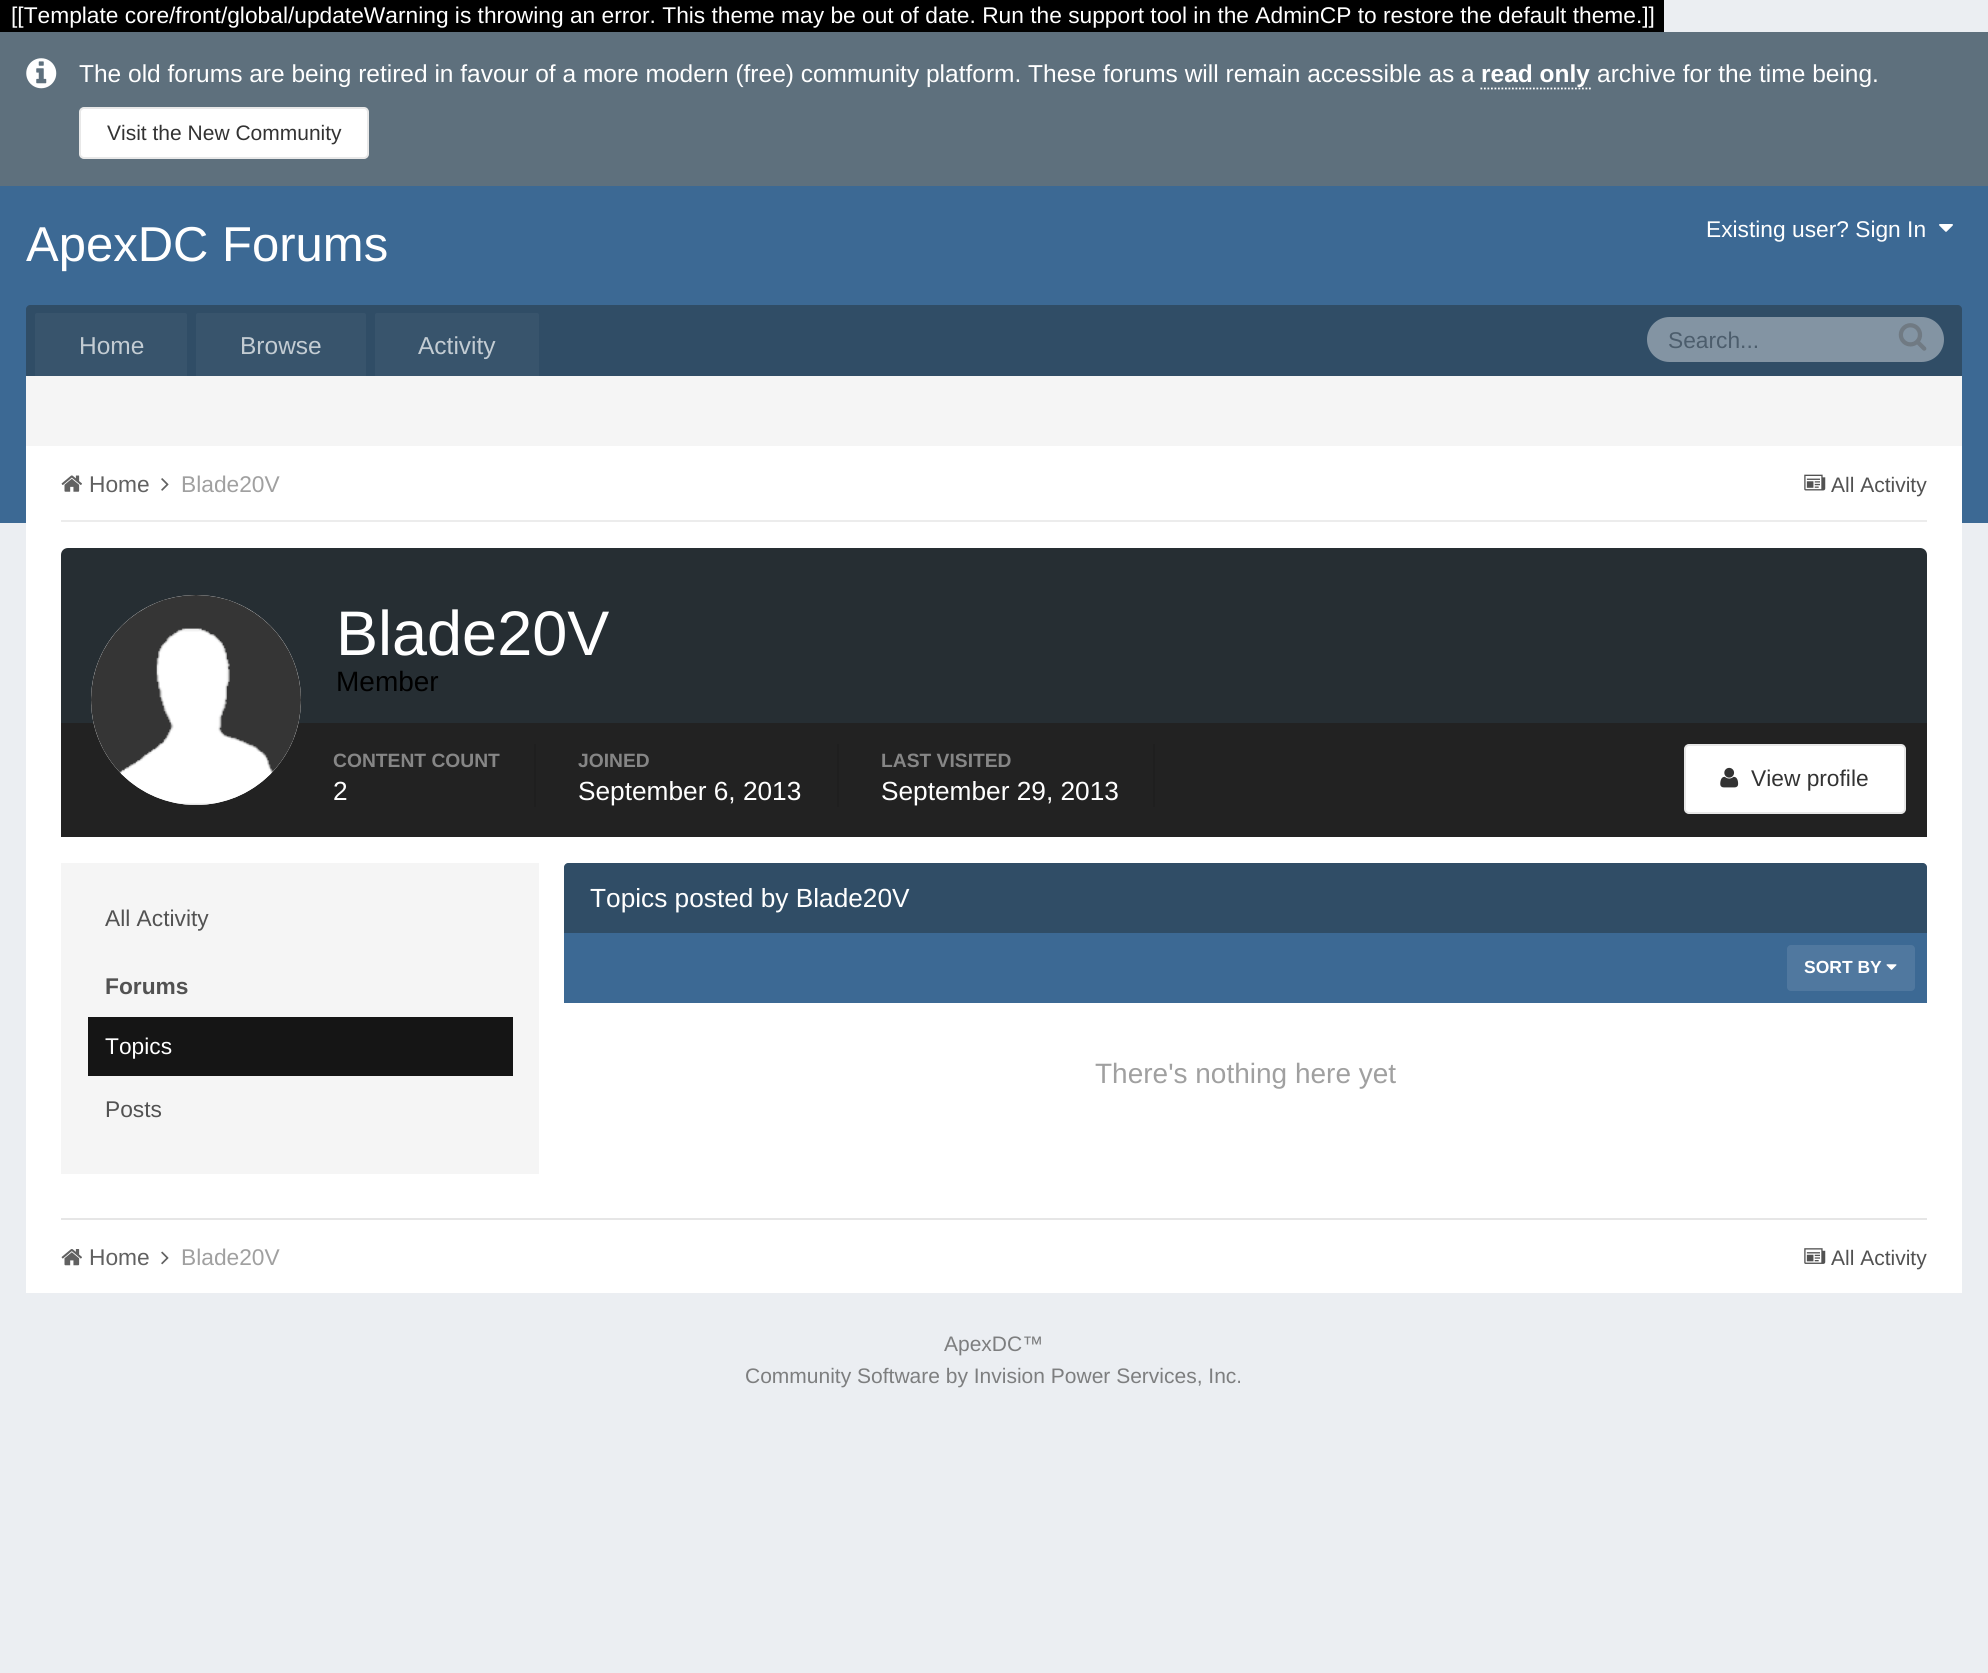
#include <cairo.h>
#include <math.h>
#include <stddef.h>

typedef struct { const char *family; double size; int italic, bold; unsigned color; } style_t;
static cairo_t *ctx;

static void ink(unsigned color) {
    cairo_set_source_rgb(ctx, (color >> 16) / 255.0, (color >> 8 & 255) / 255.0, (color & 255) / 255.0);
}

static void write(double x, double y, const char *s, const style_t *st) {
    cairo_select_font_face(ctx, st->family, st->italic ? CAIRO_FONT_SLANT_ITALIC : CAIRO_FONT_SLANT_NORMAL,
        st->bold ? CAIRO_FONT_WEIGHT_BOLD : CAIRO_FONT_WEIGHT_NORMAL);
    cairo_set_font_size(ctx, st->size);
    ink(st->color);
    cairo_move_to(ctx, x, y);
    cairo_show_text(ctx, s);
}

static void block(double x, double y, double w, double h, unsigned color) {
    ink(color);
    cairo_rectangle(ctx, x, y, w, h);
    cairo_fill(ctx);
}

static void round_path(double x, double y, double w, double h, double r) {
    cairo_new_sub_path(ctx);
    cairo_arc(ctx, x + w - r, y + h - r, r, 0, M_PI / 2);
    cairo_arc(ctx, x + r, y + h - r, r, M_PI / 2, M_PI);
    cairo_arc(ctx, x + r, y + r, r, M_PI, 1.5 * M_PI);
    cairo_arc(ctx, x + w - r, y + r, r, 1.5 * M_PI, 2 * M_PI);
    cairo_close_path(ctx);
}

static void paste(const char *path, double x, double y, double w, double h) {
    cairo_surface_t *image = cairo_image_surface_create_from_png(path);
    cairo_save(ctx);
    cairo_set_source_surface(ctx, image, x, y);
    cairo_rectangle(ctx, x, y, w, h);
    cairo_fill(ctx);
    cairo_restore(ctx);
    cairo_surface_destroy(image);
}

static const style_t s1 = {"Liberation Sans", 22.75, 0, 0, 0xffffff};
static const style_t s2 = {"Liberation Sans", 24.5, 0, 0, 0xffffff};
static const style_t s3 = {"Liberation Sans", 24.5, 0, 1, 0xffffff};
static const style_t s4 = {"Liberation Sans", 21, 0, 0, 0x333333};
static const style_t s5 = {"Liberation Sans", 49, 0, 0, 0xffffff};
static const style_t s6 = {"Liberation Sans", 24.5, 0, 0, 0xc3ccd3};
static const style_t s7 = {"Liberation Sans", 22.75, 0, 0, 0x4c5d6c};
static const style_t s8 = {"Liberation Sans", 22.75, 0, 0, 0x616161};
static const style_t s9 = {"Liberation Sans", 22.75, 0, 0, 0xa0a0a0};
static const style_t s10 = {"Liberation Sans", 21, 0, 0, 0x525252};
static const style_t s11 = {"Liberation Sans", 63, 0, 0, 0xffffff};
static const style_t s12 = {"Liberation Sans", 28, 0, 0, 0x000000};
static const style_t s13 = {"Liberation Sans", 19.25, 0, 1, 0x868686};
static const style_t s14 = {"Liberation Sans", 26.25, 0, 0, 0xffffff};
static const style_t s15 = {"Liberation Sans", 22.75, 0, 0, 0x333333};
static const style_t s16 = {"Liberation Sans", 22.75, 0, 0, 0x525252};
static const style_t s17 = {"Liberation Sans", 22.75, 0, 1, 0x525252};
static const style_t s18 = {"Liberation Sans", 17.5, 0, 1, 0xffffff};
static const style_t s19 = {"Liberation Sans", 28, 0, 0, 0xa0a0a0};
static const style_t s20 = {"Liberation Sans", 21, 0, 0, 0x7d7e7f};

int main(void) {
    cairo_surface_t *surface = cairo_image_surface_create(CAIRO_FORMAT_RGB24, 1988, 1673);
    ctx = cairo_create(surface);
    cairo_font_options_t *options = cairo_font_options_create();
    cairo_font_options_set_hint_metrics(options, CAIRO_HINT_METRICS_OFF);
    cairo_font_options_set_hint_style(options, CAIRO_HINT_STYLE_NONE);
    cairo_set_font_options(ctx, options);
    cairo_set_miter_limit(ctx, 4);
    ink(0xebeef2);
    cairo_paint(ctx);
    block(0, 0, 1664, 32, 0x000000);
    write(11, 23, "[[Template core/front/global/updateWarning is throwing an error. This theme may be out of date. Run the support tool in the AdminCP to restore the default theme.]]", &s1);
    block(0, 32, 1988, 154, 0x5e707d);
    paste("pic1.png", 26, 58, 31, 31);
    write(79, 82, "The old forums are being retired in favour of a more modern (free) community platform. These forums will remain accessible as a", &s2);
    cairo_new_path(ctx);
    cairo_move_to(ctx, 1480.5, 88.5);
    cairo_line_to(ctx, 1591, 88.5);
    cairo_set_line_width(ctx, 1.8);
    cairo_set_dash(ctx, (double[]){1.75, 1.75}, 2, 0);
    cairo_stroke(ctx);
    write(1481, 82, "read only", &s3);
    write(1597, 82, "archive for the time being.", &s2);
    round_path(80, 108, 288, 50, 4);
    cairo_fill_preserve(ctx);
    ink(0xe8e8e8);
    cairo_set_line_width(ctx, 2);
    cairo_set_dash(ctx, NULL, 0, 0);
    cairo_stroke(ctx);
    write(107, 140, "Visit the New Community", &s4);
    block(0, 186, 1988, 337, 0x3c6994);
    write(26, 261, "ApexDC Forums", &s5);
    write(1706, 237, "Existing user? Sign In", &s1);
    paste("pic2.png", 1939, 224, 14, 8);
    ink(0x304d66);
    cairo_new_path(ctx);
    cairo_move_to(ctx, 30, 305);
    cairo_line_to(ctx, 1958, 305);
    cairo_curve_to(ctx, 1960, 305, 1962, 307, 1962, 309);
    cairo_line_to(ctx, 1962, 446);
    cairo_line_to(ctx, 26, 446);
    cairo_line_to(ctx, 26, 309);
    cairo_curve_to(ctx, 26, 307, 28, 305, 30, 305);
    cairo_close_path(ctx);
    cairo_fill(ctx);
    ink(0x38546c);
    cairo_new_path(ctx);
    cairo_move_to(ctx, 37, 313);
    cairo_line_to(ctx, 185, 313);
    cairo_curve_to(ctx, 186, 313, 187, 314, 187, 315);
    cairo_line_to(ctx, 187, 376);
    cairo_line_to(ctx, 35, 376);
    cairo_line_to(ctx, 35, 315);
    cairo_curve_to(ctx, 35, 314, 36, 313, 37, 313);
    cairo_close_path(ctx);
    cairo_fill(ctx);
    write(79, 354, "Home", &s6);
    ink(0x38546c);
    cairo_new_path(ctx);
    cairo_move_to(ctx, 198, 313);
    cairo_line_to(ctx, 364, 313);
    cairo_curve_to(ctx, 365, 313, 366, 314, 366, 315);
    cairo_line_to(ctx, 366, 376);
    cairo_line_to(ctx, 196, 376);
    cairo_line_to(ctx, 196, 315);
    cairo_curve_to(ctx, 196, 314, 197, 313, 198, 313);
    cairo_close_path(ctx);
    cairo_fill(ctx);
    write(240, 354, "Browse", &s6);
    ink(0x38546c);
    cairo_new_path(ctx);
    cairo_move_to(ctx, 377, 313);
    cairo_line_to(ctx, 537, 313);
    cairo_curve_to(ctx, 538, 313, 539, 314, 539, 315);
    cairo_line_to(ctx, 539, 376);
    cairo_line_to(ctx, 375, 376);
    cairo_line_to(ctx, 375, 315);
    cairo_curve_to(ctx, 375, 314, 376, 313, 377, 313);
    cairo_close_path(ctx);
    cairo_fill(ctx);
    write(418, 354, "Activity", &s6);
    block(26, 376, 1936, 70, 0xf5f5f5);
    ink(0x8394a3);
    round_path(1647, 317, 297, 45, 22.5);
    cairo_fill(ctx);
    write(1668, 348, "Search...", &s7);
    paste("pic3.png", 1898, 323, 29, 28);
    block(26, 446, 1936, 847, 0xffffff);
    block(61, 520, 1866, 2, 0xececec);
    paste("pic4.png", 61, 475, 21, 17);
    write(89, 492, "Home", &s8);
    paste("pic5.png", 161, 478, 8, 13);
    write(181, 492, "Blade20V", &s9);
    paste("pic6.png", 1804, 474, 22, 17);
    write(1831, 492, "All Activity", &s10);
    ink(0x262e33);
    cairo_new_path(ctx);
    cairo_move_to(ctx, 68, 548);
    cairo_line_to(ctx, 1920, 548);
    cairo_curve_to(ctx, 1924, 548, 1927, 551, 1927, 555);
    cairo_line_to(ctx, 1927, 723);
    cairo_line_to(ctx, 61, 723);
    cairo_line_to(ctx, 61, 555);
    cairo_curve_to(ctx, 61, 551, 64, 548, 68, 548);
    cairo_close_path(ctx);
    cairo_fill(ctx);
    block(61, 723, 1866, 114, 0x222222);
    ink(0xffffff);
    cairo_arc(ctx, 196, 700, 105, 0, 2 * M_PI);
    cairo_fill(ctx);
    paste("pic7.png", 91, 595, 210, 210);
    write(336, 655, "Blade20V", &s11);
    write(336, 691, "Member", &s12);
    block(534, 744, 2, 63, 0x1f1f1f);
    write(333, 767, "CONTENT COUNT", &s13);
    write(333, 800, "2", &s14);
    block(837, 744, 2, 63, 0x1f1f1f);
    write(578, 767, "JOINED", &s13);
    write(578, 800, "September 6, 2013", &s14);
    block(1153, 744, 2, 63, 0x1f1f1f);
    write(881, 767, "LAST VISITED", &s13);
    write(881, 800, "September 29, 2013", &s14);
    round_path(1685, 745, 220, 68, 4);
    cairo_fill_preserve(ctx);
    ink(0xe8e8e8);
    cairo_stroke(ctx);
    paste("pic8.png", 1720, 767, 19, 21);
    write(1751, 786, "View profile", &s15);
    block(61, 863, 478, 311, 0xf5f5f5);
    write(105, 926, "All Activity", &s16);
    write(105, 994, "Forums", &s17);
    block(88, 1017, 425, 59, 0x151515);
    write(105, 1054, "Topics", &s1);
    write(105, 1117, "Posts", &s16);
    ink(0x304d66);
    cairo_new_path(ctx);
    cairo_move_to(ctx, 568, 863);
    cairo_line_to(ctx, 1923, 863);
    cairo_curve_to(ctx, 1925, 863, 1927, 865, 1927, 867);
    cairo_line_to(ctx, 1927, 933);
    cairo_line_to(ctx, 564, 933);
    cairo_line_to(ctx, 564, 867);
    cairo_curve_to(ctx, 564, 865, 566, 863, 568, 863);
    cairo_close_path(ctx);
    cairo_fill(ctx);
    write(590, 907, "Topics posted by Blade20V", &s14);
    block(564, 933, 1363, 70, 0x3c6994);
    ink(0x50789f);
    round_path(1787, 945, 128, 46, 4);
    cairo_fill(ctx);
    write(1804, 973, "SORT BY", &s18);
    paste("pic9.png", 1886, 964, 11, 6);
    write(1095, 1083, "There's nothing here yet", &s19);
    block(61, 1218, 1866, 2, 0xe6e6e6);
    paste("pic10.png", 61, 1249, 21, 17);
    write(89, 1265, "Home", &s8);
    paste("pic11.png", 161, 1251, 8, 14);
    write(181, 1265, "Blade20V", &s9);
    paste("pic12.png", 1804, 1248, 22, 16);
    write(1831, 1265, "All Activity", &s10);
    write(944, 1351, "ApexDC™", &s20);
    write(745, 1383, "Community Software by Invision Power Services, Inc.", &s20);
    cairo_surface_write_to_png(surface, "screenshot.png");
    cairo_font_options_destroy(options);
    cairo_destroy(ctx);
    cairo_surface_destroy(surface);
    return 0;
}
